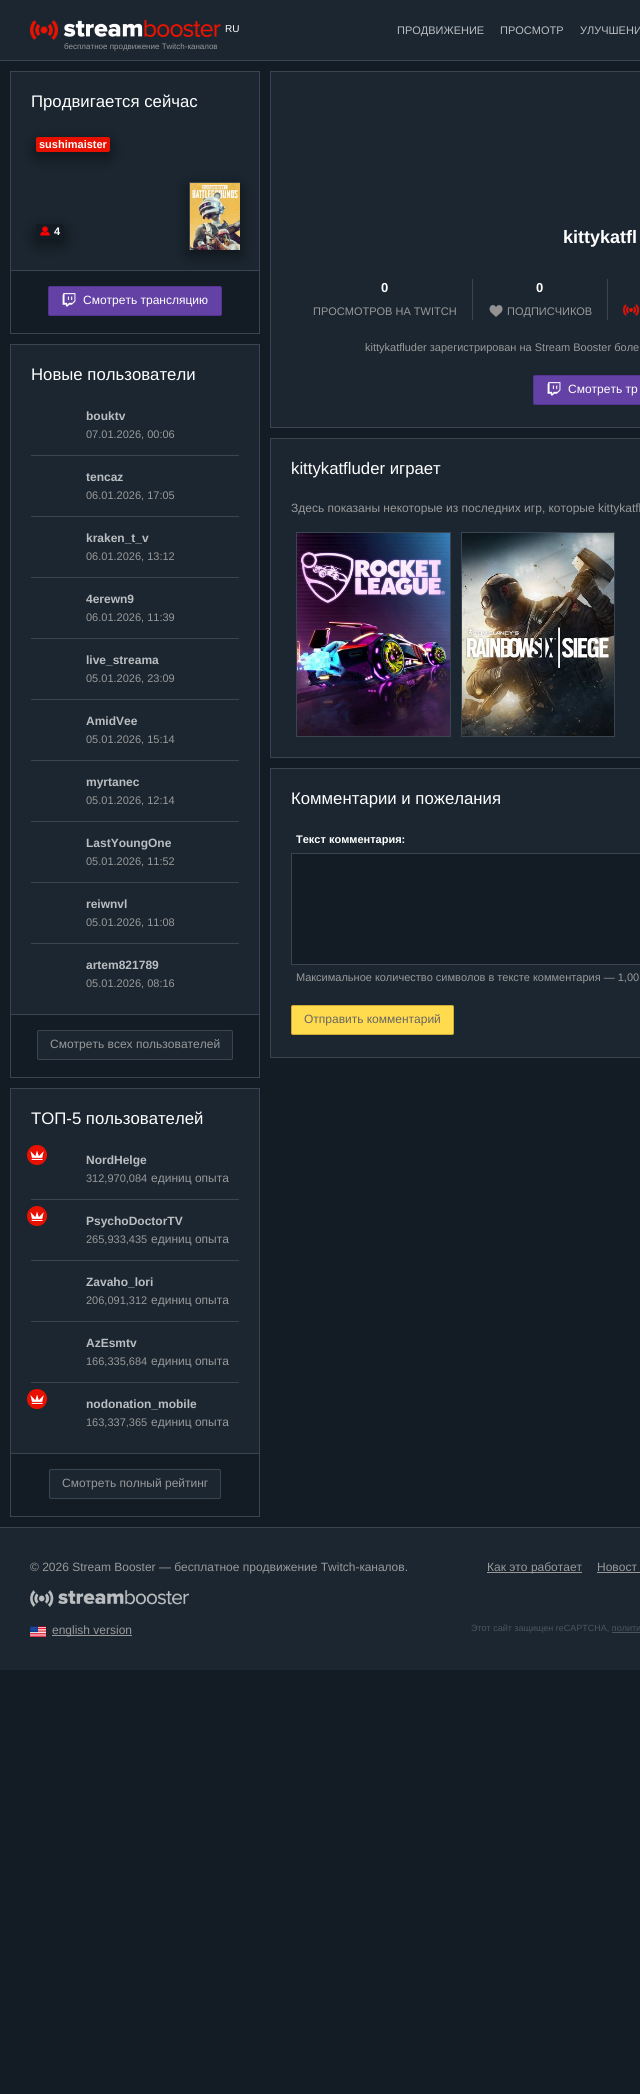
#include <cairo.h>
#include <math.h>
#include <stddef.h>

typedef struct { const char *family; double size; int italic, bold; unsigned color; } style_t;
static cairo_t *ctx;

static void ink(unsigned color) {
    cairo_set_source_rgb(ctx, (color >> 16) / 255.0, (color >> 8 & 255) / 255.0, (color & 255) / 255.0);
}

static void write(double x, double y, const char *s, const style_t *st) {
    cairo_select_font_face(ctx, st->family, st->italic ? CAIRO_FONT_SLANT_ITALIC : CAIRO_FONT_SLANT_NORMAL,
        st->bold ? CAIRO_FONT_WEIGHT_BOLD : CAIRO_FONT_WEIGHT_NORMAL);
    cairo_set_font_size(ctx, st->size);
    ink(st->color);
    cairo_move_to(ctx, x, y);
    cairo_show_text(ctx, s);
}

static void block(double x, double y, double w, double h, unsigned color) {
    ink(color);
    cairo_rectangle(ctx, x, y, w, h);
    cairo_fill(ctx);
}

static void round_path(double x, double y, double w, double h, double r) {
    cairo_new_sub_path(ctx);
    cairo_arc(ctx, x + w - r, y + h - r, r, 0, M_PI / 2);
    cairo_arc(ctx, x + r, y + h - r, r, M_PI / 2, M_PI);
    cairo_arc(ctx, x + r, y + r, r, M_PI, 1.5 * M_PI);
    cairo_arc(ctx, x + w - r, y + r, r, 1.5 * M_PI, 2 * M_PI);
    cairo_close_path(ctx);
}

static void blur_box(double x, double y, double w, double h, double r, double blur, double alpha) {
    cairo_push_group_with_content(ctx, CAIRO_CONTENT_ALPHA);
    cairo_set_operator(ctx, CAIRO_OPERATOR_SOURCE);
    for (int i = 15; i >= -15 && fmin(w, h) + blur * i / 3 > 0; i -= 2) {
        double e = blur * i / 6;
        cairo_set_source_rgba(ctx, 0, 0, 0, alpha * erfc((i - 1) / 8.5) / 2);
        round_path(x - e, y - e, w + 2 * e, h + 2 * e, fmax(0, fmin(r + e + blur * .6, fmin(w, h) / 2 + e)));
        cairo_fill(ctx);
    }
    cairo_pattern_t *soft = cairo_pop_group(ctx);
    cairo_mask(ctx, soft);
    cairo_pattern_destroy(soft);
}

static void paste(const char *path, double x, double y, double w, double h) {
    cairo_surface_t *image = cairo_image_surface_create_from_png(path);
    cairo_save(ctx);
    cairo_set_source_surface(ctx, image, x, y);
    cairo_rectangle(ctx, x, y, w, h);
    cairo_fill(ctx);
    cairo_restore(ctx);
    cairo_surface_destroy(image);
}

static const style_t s1 = {"Liberation Sans", 10, 0, 0, 0xffffff};
static const style_t s2 = {"Liberation Sans", 8, 0, 0, 0x999999};
static const style_t s3 = {"Liberation Sans", 11, 0, 0, 0xbbbec1};
static const style_t s4 = {"Liberation Sans", 16.75, 0, 0, 0xffffff};
static const style_t s5 = {"Liberation Sans", 11, 0, 1, 0xffffff};
static const style_t s6 = {"Liberation Sans", 12, 0, 0, 0xffffff};
static const style_t s7 = {"Liberation Sans", 12, 0, 1, 0xbbbec1};
static const style_t s8 = {"Liberation Sans", 11, 0, 0, 0x999999};
static const style_t s9 = {"Liberation Sans", 12, 0, 0, 0x999999};
static const style_t s10 = {"Liberation Sans", 18, 0, 1, 0xffffff};
static const style_t s11 = {"Liberation Sans", 13, 0, 1, 0xffffff};
static const style_t s12 = {"Liberation Sans", 12, 0, 0, 0x666666};
static const style_t s13 = {"Liberation Sans", 9, 0, 0, 0x485460};

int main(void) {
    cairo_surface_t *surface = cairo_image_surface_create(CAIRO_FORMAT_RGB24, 640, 2094);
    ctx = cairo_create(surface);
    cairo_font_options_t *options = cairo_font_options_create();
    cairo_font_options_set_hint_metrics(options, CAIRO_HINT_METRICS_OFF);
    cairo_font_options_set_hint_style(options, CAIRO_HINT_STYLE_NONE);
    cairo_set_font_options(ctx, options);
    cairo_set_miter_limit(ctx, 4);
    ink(0x131c24);
    cairo_paint(ctx);
    block(0, 0, 640, 60, 0x1b2630);
    block(0, 60, 640, 1, 0x394652);
    paste("pic1.png", 30, 19, 191, 21);
    write(225, 32, "RU", &s1);
    write(64, 49, "бесплатное продвижение Twitch-каналов", &s2);
    write(397, 34, "ПРОДВИЖЕНИЕ", &s3);
    write(500, 34, "ПРОСМОТР", &s3);
    write(580, 34, "УЛУЧШЕНИ", &s3);
    block(11, 72, 248, 198, 0x1b2630);
    cairo_rectangle(ctx, 10.5, 71.5, 249, 262);
    ink(0x394652);
    cairo_set_line_width(ctx, 1);
    cairo_stroke(ctx);
    write(31, 107, "Продвигается сейчас", &s4);
    ink(0x000000);
    blur_box(36, 142, 74, 15, 2, 7.5, 0.5);
    ink(0xe81100);
    round_path(36, 137, 74, 15, 2);
    cairo_fill(ctx);
    write(39, 148, "sushimaister", &s5);
    ink(0x000000);
    blur_box(36, 229, 28, 15, 2, 7.5, 0.5);
    ink(0x131c24);
    round_path(36, 224, 28, 15, 2);
    cairo_fill(ctx);
    paste("pic2.png", 39, 226, 12, 10);
    write(54, 235, "4", &s5);
    block(11, 270, 248, 1, 0x394652);
    ink(0x000000);
    blur_box(189, 187, 51, 68, 0, 7.5, 0.5);
    block(189, 182, 51, 1, 0x394652);
    block(189, 182, 1, 68, 0x394652);
    paste("pic3.png", 190, 183, 50, 67);
    ink(0x6441a4);
    round_path(48.5, 286.5, 173, 29, 1.5);
    cairo_fill_preserve(ctx);
    ink(0x553393);
    cairo_stroke(ctx);
    paste("pic4.png", 62, 293, 14, 14);
    write(83, 304, "Смотреть трансляцию", &s6);
    block(11, 345, 248, 669, 0x1b2630);
    cairo_rectangle(ctx, 10.5, 344.5, 249, 733);
    ink(0x394652);
    cairo_stroke(ctx);
    write(31, 380, "Новые пользователи", &s4);
    write(86, 420, "bouktv", &s7);
    write(86, 438, "07.01.2026, 00:06", &s8);
    block(31, 455, 208, 1, 0x394652);
    write(86, 481, "tencaz", &s7);
    write(86, 499, "06.01.2026, 17:05", &s8);
    block(31, 516, 208, 1, 0x394652);
    write(86, 542, "kraken_t_v", &s7);
    write(86, 560, "06.01.2026, 13:12", &s8);
    block(31, 577, 208, 1, 0x394652);
    write(86, 603, "4erewn9", &s7);
    write(86, 621, "06.01.2026, 11:39", &s8);
    block(31, 638, 208, 1, 0x394652);
    write(86, 664, "live_streama", &s7);
    write(86, 682, "05.01.2026, 23:09", &s8);
    block(31, 699, 208, 1, 0x394652);
    write(86, 725, "AmidVee", &s7);
    write(86, 743, "05.01.2026, 15:14", &s8);
    block(31, 760, 208, 1, 0x394652);
    write(86, 786, "myrtanec", &s7);
    write(86, 804, "05.01.2026, 12:14", &s8);
    block(31, 821, 208, 1, 0x394652);
    write(86, 847, "LastYoungOne", &s7);
    write(86, 865, "05.01.2026, 11:52", &s8);
    block(31, 882, 208, 1, 0x394652);
    write(86, 908, "reiwnvl", &s7);
    write(86, 926, "05.01.2026, 11:08", &s8);
    block(31, 943, 208, 1, 0x394652);
    write(86, 969, "artem821789", &s7);
    write(86, 987, "05.01.2026, 08:16", &s8);
    block(11, 1014, 248, 1, 0x394652);
    ink(0x1b2630);
    round_path(37.5, 1030.5, 195, 29, 1.5);
    cairo_fill_preserve(ctx);
    ink(0x394652);
    cairo_stroke(ctx);
    write(50, 1048, "Смотреть всех пользователей", &s9);
    block(11, 1089, 248, 364, 0x1b2630);
    cairo_rectangle(ctx, 10.5, 1088.5, 249, 428);
    ink(0x394652);
    cairo_stroke(ctx);
    write(31, 1124, "ТОП-5 пользователей", &s4);
    block(31, 1199, 208, 1, 0x394652);
    paste("pic5.png", 27, 1145, 20, 20);
    write(86, 1164, "NordHelge", &s7);
    write(86, 1182, "312,970,084", &s8);
    write(151, 1182, "единиц опыта", &s9);
    block(31, 1260, 208, 1, 0x394652);
    paste("pic5.png", 27, 1206, 20, 20);
    write(86, 1225, "PsychoDoctorTV", &s7);
    write(86, 1243, "265,933,435", &s8);
    write(151, 1243, "единиц опыта", &s9);
    write(86, 1286, "Zavaho_lori", &s7);
    write(86, 1304, "206,091,312", &s8);
    write(151, 1304, "единиц опыта", &s9);
    block(31, 1321, 208, 1, 0x394652);
    write(86, 1347, "AzEsmtv", &s7);
    write(86, 1365, "166,335,684", &s8);
    write(151, 1365, "единиц опыта", &s9);
    block(31, 1382, 208, 1, 0x394652);
    paste("pic5.png", 27, 1389, 20, 20);
    write(86, 1408, "nodonation_mobile", &s7);
    write(86, 1426, "163,337,365", &s8);
    write(151, 1426, "единиц опыта", &s9);
    block(11, 1453, 248, 1, 0x394652);
    ink(0x1b2630);
    round_path(49.5, 1469.5, 171, 29, 1.5);
    cairo_fill_preserve(ctx);
    ink(0x394652);
    cairo_stroke(ctx);
    write(62, 1487, "Смотреть полный рейтинг", &s9);
    ink(0x1b2630);
    cairo_rectangle(ctx, 270.5, 71.5, 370, 356);
    cairo_fill_preserve(ctx);
    ink(0x394652);
    cairo_stroke(ctx);
    write(563, 243, "kittykatfl", &s10);
    block(472, 279, 1, 41, 0x394652);
    write(381, 292, "0", &s11);
    write(313, 315, "ПРОСМОТРОВ НА TWITCH", &s8);
    block(607, 279, 1, 41, 0x394652);
    write(536, 292, "0", &s11);
    paste("pic6.png", 489, 305, 14, 12);
    write(507, 315, "ПОДПИСЧИКОВ", &s8);
    paste("pic7.png", 623, 304, 16, 12);
    write(365, 351, "kittykatfluder зарегистрирован на Stream Booster боле", &s8);
    ink(0x6441a4);
    round_path(533.5, 375.5, 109, 29, 1.5);
    cairo_fill_preserve(ctx);
    ink(0x553393);
    cairo_stroke(ctx);
    paste("pic4.png", 547, 382, 14, 14);
    write(568, 393, "Смотреть тр", &s6);
    ink(0x1b2630);
    cairo_rectangle(ctx, 270.5, 438.5, 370, 319);
    cairo_fill_preserve(ctx);
    ink(0x394652);
    cairo_stroke(ctx);
    write(291, 474, "kittykatfluder играет", &s4);
    write(291, 512, "Здесь показаны некоторые из последних игр, которые kittykatfl", &s9);
    cairo_rectangle(ctx, 296.5, 532.5, 154, 204);
    ink(0x394652);
    cairo_stroke(ctx);
    paste("pic8.png", 297, 533, 153, 203);
    cairo_rectangle(ctx, 461.5, 532.5, 153, 204);
    cairo_stroke(ctx);
    paste("pic9.png", 462, 533, 152, 203);
    ink(0x1b2630);
    cairo_rectangle(ctx, 270.5, 768.5, 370, 289);
    cairo_fill_preserve(ctx);
    ink(0x394652);
    cairo_stroke(ctx);
    write(291, 804, "Комментарии и пожелания", &s4);
    write(296, 843, "Текст комментария:", &s5);
    ink(0x131c24);
    cairo_rectangle(ctx, 291.5, 853.5, 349, 111);
    cairo_fill_preserve(ctx);
    ink(0x394652);
    cairo_stroke(ctx);
    write(296, 981, "Максимальное количество символов в тексте комментария — 1,00", &s8);
    ink(0xffdb4d);
    round_path(291.5, 1005.5, 162, 29, 1.5);
    cairo_fill_preserve(ctx);
    ink(0xccad33);
    cairo_stroke(ctx);
    write(304, 1023, "Отправить комментарий", &s12);
    block(0, 1528, 640, 142, 0x1b2630);
    block(0, 1527, 640, 1, 0x394652);
    write(30, 1571, "© 2026 Stream Booster — бесплатное продвижение Twitch-каналов.", &s9);
    paste("pic10.png", 30, 1590, 159, 18);
    paste("pic11.png", 30, 1626, 16, 11);
    block(52, 1635, 80, 1, 0x999999);
    write(52, 1634, "english version", &s9);
    block(487, 1572, 95, 1, 0x999999);
    write(487, 1571, "Как это работает", &s9);
    write(597, 1571, "Новост", &s9);
    block(597, 1572, 43, 1, 0x999999);
    write(471, 1631, "Этот сайт защищен reCAPTCHA, полити", &s13);
    block(612, 1632, 28, 1, 0x485460);
    cairo_surface_write_to_png(surface, "screenshot.png");
    cairo_font_options_destroy(options);
    cairo_destroy(ctx);
    cairo_surface_destroy(surface);
    return 0;
}
